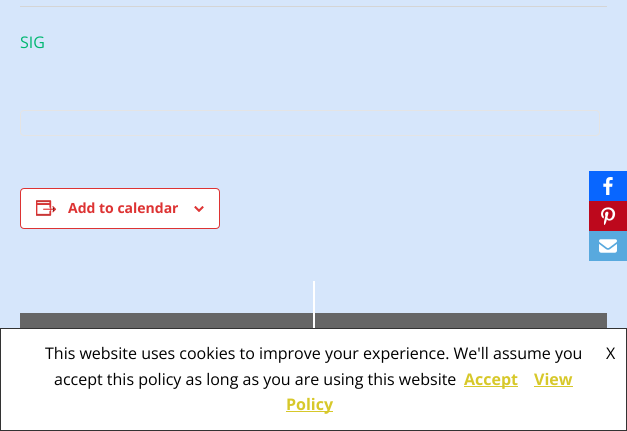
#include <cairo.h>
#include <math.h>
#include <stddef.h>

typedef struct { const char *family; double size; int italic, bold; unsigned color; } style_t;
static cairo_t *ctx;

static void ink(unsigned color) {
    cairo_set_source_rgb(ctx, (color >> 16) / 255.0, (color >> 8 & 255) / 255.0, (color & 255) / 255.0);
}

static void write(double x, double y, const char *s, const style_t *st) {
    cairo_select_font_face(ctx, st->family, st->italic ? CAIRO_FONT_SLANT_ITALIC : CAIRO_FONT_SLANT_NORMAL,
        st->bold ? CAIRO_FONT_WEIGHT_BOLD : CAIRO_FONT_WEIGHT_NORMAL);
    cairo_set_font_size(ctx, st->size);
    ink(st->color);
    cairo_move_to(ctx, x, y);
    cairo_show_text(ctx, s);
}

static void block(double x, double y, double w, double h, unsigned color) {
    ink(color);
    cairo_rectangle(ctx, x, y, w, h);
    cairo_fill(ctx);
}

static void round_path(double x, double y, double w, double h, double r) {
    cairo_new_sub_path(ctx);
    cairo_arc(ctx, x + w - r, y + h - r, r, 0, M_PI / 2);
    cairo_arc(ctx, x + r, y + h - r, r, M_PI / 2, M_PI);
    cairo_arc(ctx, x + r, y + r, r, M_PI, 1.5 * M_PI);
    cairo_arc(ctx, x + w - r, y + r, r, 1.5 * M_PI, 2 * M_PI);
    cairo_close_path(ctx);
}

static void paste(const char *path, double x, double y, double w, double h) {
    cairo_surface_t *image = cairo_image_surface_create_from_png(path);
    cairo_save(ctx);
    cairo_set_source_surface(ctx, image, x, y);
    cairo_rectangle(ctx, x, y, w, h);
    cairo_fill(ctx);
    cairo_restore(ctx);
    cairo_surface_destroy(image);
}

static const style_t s1 = {"Open Sans", 16, 0, 0, 0x00b771};
static const style_t s2 = {"Open Sans", 14, 0, 1, 0xdd3333};
static const style_t s3 = {"Open Sans", 16, 0, 0, 0x000000};
static const style_t s4 = {"Open Sans", 16, 0, 1, 0xd7c82a};

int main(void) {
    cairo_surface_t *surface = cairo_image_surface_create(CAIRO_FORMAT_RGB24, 627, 431);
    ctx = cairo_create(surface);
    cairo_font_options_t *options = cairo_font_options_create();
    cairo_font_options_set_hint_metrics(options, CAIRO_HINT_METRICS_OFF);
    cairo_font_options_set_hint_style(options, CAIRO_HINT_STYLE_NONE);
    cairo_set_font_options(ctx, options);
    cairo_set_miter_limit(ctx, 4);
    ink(0xd6e6fb);
    cairo_paint(ctx);
    block(20, 6, 587, 1, 0xd5d5d5);
    write(20, 48, "SIG", &s1);
    round_path(20.5, 110.5, 579, 25, 3.5);
    ink(0xe4e4e4);
    cairo_set_line_width(ctx, 1);
    cairo_stroke(ctx);
    ink(0xffffff);
    round_path(20.5, 188.5, 199, 40, 3.5);
    cairo_fill_preserve(ctx);
    ink(0xdd3333);
    cairo_stroke(ctx);
    paste("pic1.png", 36, 200, 21, 16);
    write(68, 213, "Add to calendar", &s2);
    paste("pic2.png", 194, 206, 10, 6);
    block(313, 281, 2, 47, 0xffffff);
    block(20, 313, 293, 15, 0x666666);
    block(315, 313, 292, 15, 0x666666);
    block(589, 171, 38, 30, 0x0866ff);
    paste("pic3.png", 603, 177, 10, 18);
    block(589, 201, 38, 30, 0xbd081c);
    paste("pic4.png", 601, 207, 15, 18);
    block(589, 231, 38, 30, 0x58a9de);
    paste("pic5.png", 599, 239, 18, 14);
    ink(0xffffff);
    cairo_rectangle(ctx, 0.5, 328.5, 626, 102);
    cairo_fill_preserve(ctx);
    ink(0x333333);
    cairo_stroke(ctx);
    write(45, 359, "This website uses cookies to improve your experience. We'll assume you", &s3);
    write(606, 359, "X", &s3);
    write(54, 385, "accept this policy as long as you are using this website", &s3);
    block(464, 386, 54, 1, 0xd7c82a);
    write(464, 385, "Accept", &s4);
    write(534, 385, "View", &s4);
    block(534, 386, 39, 1, 0xd7c82a);
    block(286, 411, 47, 1, 0xd7c82a);
    write(286, 410, "Policy", &s4);
    cairo_surface_write_to_png(surface, "screenshot.png");
    cairo_font_options_destroy(options);
    cairo_destroy(ctx);
    cairo_surface_destroy(surface);
    return 0;
}
